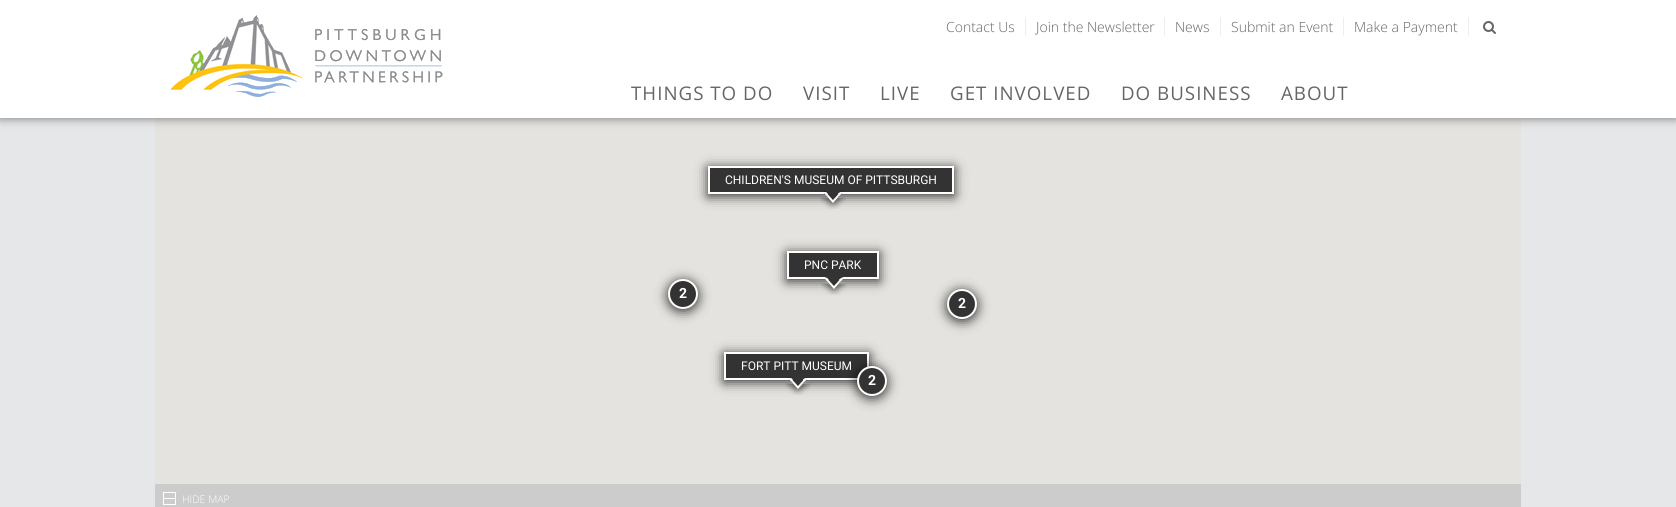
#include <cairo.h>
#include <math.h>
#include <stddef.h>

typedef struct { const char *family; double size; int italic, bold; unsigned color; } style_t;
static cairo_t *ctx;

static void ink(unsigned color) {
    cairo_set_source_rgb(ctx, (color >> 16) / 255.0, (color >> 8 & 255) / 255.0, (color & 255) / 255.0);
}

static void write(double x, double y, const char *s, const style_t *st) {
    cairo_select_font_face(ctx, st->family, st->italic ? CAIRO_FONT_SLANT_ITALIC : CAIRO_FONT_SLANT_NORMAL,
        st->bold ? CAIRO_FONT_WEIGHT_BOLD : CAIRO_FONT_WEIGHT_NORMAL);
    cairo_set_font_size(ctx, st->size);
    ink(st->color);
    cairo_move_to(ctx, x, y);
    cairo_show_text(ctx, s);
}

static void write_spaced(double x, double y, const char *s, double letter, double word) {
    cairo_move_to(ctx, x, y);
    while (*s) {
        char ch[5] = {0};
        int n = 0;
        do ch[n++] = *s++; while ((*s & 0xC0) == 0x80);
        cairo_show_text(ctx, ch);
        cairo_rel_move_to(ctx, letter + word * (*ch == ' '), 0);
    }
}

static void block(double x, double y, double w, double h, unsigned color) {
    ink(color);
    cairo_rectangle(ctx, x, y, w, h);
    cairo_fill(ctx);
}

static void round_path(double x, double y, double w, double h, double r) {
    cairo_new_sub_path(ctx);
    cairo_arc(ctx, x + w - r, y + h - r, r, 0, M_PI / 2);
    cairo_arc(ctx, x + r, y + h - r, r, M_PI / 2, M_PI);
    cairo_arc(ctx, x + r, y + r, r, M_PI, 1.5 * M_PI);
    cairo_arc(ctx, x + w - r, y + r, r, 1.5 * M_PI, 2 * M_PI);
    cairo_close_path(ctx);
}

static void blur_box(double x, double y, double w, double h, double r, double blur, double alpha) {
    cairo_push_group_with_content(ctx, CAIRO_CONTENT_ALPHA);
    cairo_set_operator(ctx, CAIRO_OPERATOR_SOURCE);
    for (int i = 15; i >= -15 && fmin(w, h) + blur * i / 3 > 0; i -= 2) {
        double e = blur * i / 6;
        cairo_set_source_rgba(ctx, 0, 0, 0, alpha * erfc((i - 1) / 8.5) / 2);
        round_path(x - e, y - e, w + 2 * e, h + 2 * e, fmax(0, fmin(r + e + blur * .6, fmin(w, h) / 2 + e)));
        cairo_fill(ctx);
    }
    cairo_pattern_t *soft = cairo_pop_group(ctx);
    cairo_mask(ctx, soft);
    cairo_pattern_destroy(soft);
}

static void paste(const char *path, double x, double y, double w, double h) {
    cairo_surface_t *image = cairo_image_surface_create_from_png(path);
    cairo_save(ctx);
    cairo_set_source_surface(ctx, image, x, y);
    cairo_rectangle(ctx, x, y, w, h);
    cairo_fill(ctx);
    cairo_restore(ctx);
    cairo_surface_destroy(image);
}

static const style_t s1 = {"Open Sans Light", 14, 0, 0, 0x666666};
static const style_t s2 = {"Roboto", 12, 0, 0, 0xffffff};
static const style_t s3 = {"Roboto", 14, 0, 1, 0xffffff};
static const style_t s4 = {"Open Sans Light", 10.5, 0, 0, 0xffffff};

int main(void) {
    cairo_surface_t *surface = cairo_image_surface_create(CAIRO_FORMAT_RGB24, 1676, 507);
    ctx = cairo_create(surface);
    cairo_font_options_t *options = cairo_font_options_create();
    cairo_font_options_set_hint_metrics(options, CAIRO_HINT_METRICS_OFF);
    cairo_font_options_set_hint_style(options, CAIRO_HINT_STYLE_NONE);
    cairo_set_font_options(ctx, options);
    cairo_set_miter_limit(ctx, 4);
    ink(0xe6e7e8);
    cairo_paint(ctx);
    block(155, 118, 1366, 366, 0xe5e3df);
    ink(0x000000);
    blur_box(0, 0, 1676, 118, 0, 5, 0.5);
    block(0, 0, 1676, 118, 0xffffff);
    paste("pic1.png", 170, 15, 273, 82);
    block(1025, 17, 1, 19, 0xeeeeee);
    write(946, 32, "Contact Us", &s1);
    block(1164, 17, 1, 19, 0xeeeeee);
    write(1036, 32, "Join the Newsletter", &s1);
    block(1220, 17, 1, 19, 0xeeeeee);
    write(1175, 32, "News", &s1);
    block(1343, 17, 1, 19, 0xeeeeee);
    write(1231, 32, "Submit an Event", &s1);
    block(1468, 17, 1, 19, 0xeeeeee);
    write(1354, 32, "Make a Payment", &s1);
    paste("pic2.png", 1483, 21, 13, 13);
    cairo_select_font_face(ctx, "Open Sans", CAIRO_FONT_SLANT_NORMAL, CAIRO_FONT_WEIGHT_NORMAL);
    cairo_set_font_size(ctx, 18.75);
    write_spaced(631, 100, "THINGS TO DO", 1, 0);
    write_spaced(803, 100, "VISIT", 1, 0);
    write_spaced(880, 100, "LIVE", 1, 0);
    write_spaced(950, 100, "GET INVOLVED", 1, 0);
    write_spaced(1121, 100, "DO BUSINESS", 1, 0);
    write_spaced(1281, 100, "ABOUT", 1, 0);
    ink(0x000000);
    blur_box(708, 168, 246, 28, 0, 6, 0.8);
    ink(0x333333);
    cairo_rectangle(ctx, 709, 167, 244, 26);
    cairo_fill_preserve(ctx);
    ink(0xffffff);
    cairo_stroke(ctx);
    write(725, 184, "CHILDREN'S MUSEUM OF PITTSBURGH", &s2);
    paste("pic3.png", 820, 191, 26, 18);
    ink(0x000000);
    blur_box(787, 253, 92, 28, 0, 6, 0.8);
    ink(0x333333);
    cairo_rectangle(ctx, 788, 252, 90, 26);
    cairo_fill_preserve(ctx);
    ink(0xffffff);
    cairo_stroke(ctx);
    write(804, 269, "PNC PARK", &s2);
    paste("pic4.png", 821, 277, 26, 18);
    ink(0x000000);
    blur_box(668, 281, 30, 30, 15, 6, 0.8);
    ink(0x333333);
    cairo_arc(ctx, 683, 294, 14, 0, 2 * M_PI);
    cairo_fill_preserve(ctx);
    ink(0xffffff);
    cairo_stroke(ctx);
    write(679, 298, "2", &s3);
    ink(0x000000);
    blur_box(947, 291, 30, 30, 15, 6, 0.8);
    ink(0x333333);
    cairo_arc(ctx, 962, 304, 14, 0, 2 * M_PI);
    cairo_fill_preserve(ctx);
    ink(0xffffff);
    cairo_stroke(ctx);
    write(958, 308, "2", &s3);
    ink(0x000000);
    blur_box(724, 354, 145, 28, 0, 6, 0.8);
    ink(0x333333);
    cairo_rectangle(ctx, 725, 353, 143, 26);
    cairo_fill_preserve(ctx);
    ink(0xffffff);
    cairo_stroke(ctx);
    write(741, 370, "FORT PITT MUSEUM", &s2);
    paste("pic3.png", 785, 377, 26, 18);
    ink(0x000000);
    blur_box(857, 368, 30, 30, 15, 6, 0.8);
    ink(0x333333);
    cairo_arc(ctx, 872, 381, 14, 0, 2 * M_PI);
    cairo_fill_preserve(ctx);
    ink(0xffffff);
    cairo_stroke(ctx);
    write(868, 385, "2", &s3);
    block(155, 484, 1366, 23, 0xcccccc);
    paste("pic5.png", 163, 492, 13, 13);
    write(182, 503, "HIDE MAP", &s4);
    cairo_surface_write_to_png(surface, "screenshot.png");
    cairo_font_options_destroy(options);
    cairo_destroy(ctx);
    cairo_surface_destroy(surface);
    return 0;
}
